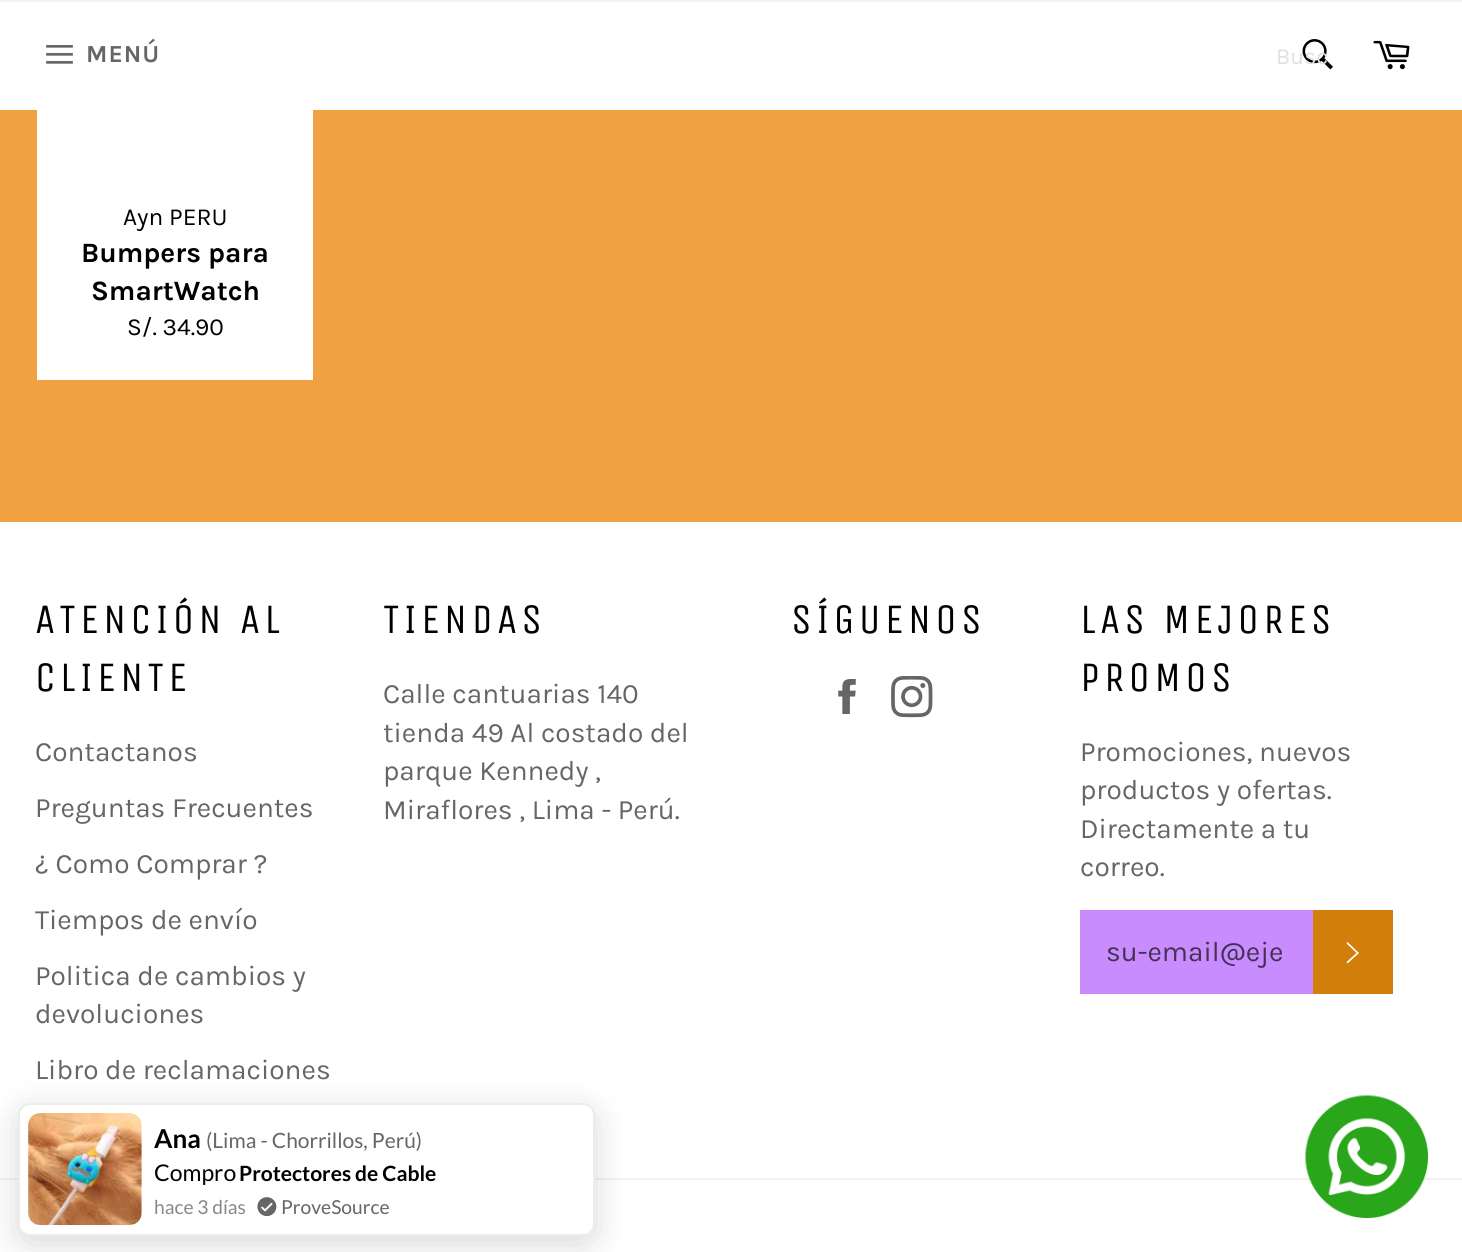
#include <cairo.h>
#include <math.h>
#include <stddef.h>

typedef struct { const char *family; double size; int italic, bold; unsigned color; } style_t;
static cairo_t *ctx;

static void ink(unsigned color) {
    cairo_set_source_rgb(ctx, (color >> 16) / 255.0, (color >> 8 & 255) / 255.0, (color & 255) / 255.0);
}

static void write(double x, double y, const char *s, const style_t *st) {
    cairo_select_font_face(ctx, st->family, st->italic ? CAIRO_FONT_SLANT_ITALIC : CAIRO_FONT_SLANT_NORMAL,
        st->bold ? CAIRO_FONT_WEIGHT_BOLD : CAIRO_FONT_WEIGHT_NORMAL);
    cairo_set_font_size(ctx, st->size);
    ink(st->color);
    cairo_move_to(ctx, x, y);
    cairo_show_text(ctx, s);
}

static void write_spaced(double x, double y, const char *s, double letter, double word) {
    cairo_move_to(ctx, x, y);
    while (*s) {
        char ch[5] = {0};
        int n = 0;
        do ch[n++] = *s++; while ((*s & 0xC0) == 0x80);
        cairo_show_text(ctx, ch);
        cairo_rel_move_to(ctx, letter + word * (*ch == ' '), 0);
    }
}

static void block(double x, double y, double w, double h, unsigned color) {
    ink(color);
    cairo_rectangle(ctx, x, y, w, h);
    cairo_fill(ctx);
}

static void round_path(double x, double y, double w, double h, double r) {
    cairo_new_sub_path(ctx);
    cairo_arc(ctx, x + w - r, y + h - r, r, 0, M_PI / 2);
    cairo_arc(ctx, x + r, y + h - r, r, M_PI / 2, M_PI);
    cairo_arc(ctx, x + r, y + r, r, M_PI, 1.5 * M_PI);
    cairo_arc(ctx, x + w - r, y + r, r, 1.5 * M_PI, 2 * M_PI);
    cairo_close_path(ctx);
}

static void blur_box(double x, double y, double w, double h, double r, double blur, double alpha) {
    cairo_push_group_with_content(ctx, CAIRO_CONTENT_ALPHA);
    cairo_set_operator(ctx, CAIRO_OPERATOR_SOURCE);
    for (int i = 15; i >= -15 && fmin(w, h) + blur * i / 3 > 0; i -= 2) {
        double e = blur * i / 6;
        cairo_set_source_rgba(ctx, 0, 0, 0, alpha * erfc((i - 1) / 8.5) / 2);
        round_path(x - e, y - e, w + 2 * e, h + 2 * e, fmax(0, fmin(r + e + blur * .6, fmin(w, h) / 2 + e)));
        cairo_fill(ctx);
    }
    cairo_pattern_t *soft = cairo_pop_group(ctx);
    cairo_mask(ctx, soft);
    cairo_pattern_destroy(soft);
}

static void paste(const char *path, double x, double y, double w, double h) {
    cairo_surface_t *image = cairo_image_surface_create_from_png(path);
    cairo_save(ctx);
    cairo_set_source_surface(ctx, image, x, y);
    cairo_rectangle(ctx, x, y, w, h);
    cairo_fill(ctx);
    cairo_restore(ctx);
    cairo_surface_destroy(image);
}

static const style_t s1 = {"Karla", 23, 0, 0, 0xe0e0e0};
static const style_t s2 = {"Karla", 24.5, 0, 0, 0x000000};
static const style_t s3 = {"Karla", 28, 0, 1, 0x000000};
static const style_t s4 = {"Karla", 28, 0, 0, 0x666666};
static const style_t s5 = {"Karla", 28, 0, 0, 0x453154};
static const style_t s6 = {"Lato", 26, 0, 1, 0x000000};
static const style_t s7 = {"Lato", 21, 0, 0, 0x666666};
static const style_t s8 = {"Lato", 23, 0, 0, 0x000000};
static const style_t s9 = {"Lato", 21, 0, 1, 0x000000};
static const style_t s10 = {"Lato", 19.25, 0, 0, 0x888888};
static const style_t s11 = {"Lato", 19.25, 0, 0, 0x666666};

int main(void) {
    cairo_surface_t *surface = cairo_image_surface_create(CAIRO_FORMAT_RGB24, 1462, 1252);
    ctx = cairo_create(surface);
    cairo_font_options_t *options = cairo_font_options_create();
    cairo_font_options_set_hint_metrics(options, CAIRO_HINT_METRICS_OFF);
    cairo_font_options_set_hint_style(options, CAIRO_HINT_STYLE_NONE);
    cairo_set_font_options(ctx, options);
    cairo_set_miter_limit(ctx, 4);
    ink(0xf2a142);
    cairo_paint(ctx);
    block(0, 2, 1462, 108, 0xffffff);
    block(0, 0, 1462, 2, 0xf2f2f2);
    paste("pic1.png", 46, 45, 27, 19);
    cairo_select_font_face(ctx, "Karla", CAIRO_FONT_SLANT_NORMAL, CAIRO_FONT_WEIGHT_BOLD);
    cairo_set_font_size(ctx, 24.5);
    ink(0x666666);
    write_spaced(86, 62, "MENÚ", 1, 0);
    paste("pic2.png", 1302, 39, 31, 31);
    write(1276, 64, "Busc", &s1);
    paste("pic3.png", 1373, 40, 37, 30);
    block(37, 110, 276, 270, 0xffffff);
    write(123, 225, "Ayn PERU", &s2);
    write(81, 262, "Bumpers para", &s3);
    write(91, 300, "SmartWatch", &s3);
    write(127, 335, "S/. 34.90", &s2);
    block(0, 522, 1462, 730, 0xffffff);
    cairo_select_font_face(ctx, "Unica One", CAIRO_FONT_SLANT_NORMAL, CAIRO_FONT_WEIGHT_NORMAL);
    cairo_set_font_size(ctx, 42);
    ink(0x000000);
    write_spaced(35, 633, "ATENCIÓN AL", 4.25, 0);
    write_spaced(35, 691, "CLIENTE", 4.25, 0);
    write(35, 761, "Contactanos", &s4);
    write(35, 817, "Preguntas Frecuentes", &s4);
    write(35, 873, "¿ Como Comprar ?", &s4);
    write(35, 929, "Tiempos de envío", &s4);
    write(35, 985, "Politica de cambios y", &s4);
    write(35, 1023, "devoluciones", &s4);
    write(35, 1079, "Libro de reclamaciones", &s4);
    cairo_select_font_face(ctx, "Unica One", CAIRO_FONT_SLANT_NORMAL, CAIRO_FONT_WEIGHT_NORMAL);
    cairo_set_font_size(ctx, 42);
    ink(0x000000);
    write_spaced(383, 633, "TIENDAS", 4.25, 0);
    write(383, 703, "Calle cantuarias 140", &s4);
    write(383, 742, "tienda 49 Al costado del", &s4);
    write(383, 780, "parque Kennedy ,", &s4);
    write(383, 819, "Miraflores , Lima - Perú.", &s4);
    cairo_select_font_face(ctx, "Unica One", CAIRO_FONT_SLANT_NORMAL, CAIRO_FONT_WEIGHT_NORMAL);
    cairo_set_font_size(ctx, 42);
    ink(0x000000);
    write_spaced(791, 633, "SÍGUENOS", 4.25, 0);
    paste("pic4.png", 838, 679, 18, 35);
    paste("pic5.png", 891, 676, 42, 42);
    write_spaced(1080, 633, "LAS MEJORES", 4.25, 0);
    write_spaced(1080, 691, "PROMOS", 4.25, 0);
    write(1080, 761, "Promociones, nuevos", &s4);
    write(1080, 799, "productos y ofertas.", &s4);
    write(1080, 838, "Directamente a tu", &s4);
    write(1080, 876, "correo.", &s4);
    block(1080, 910, 233, 84, 0xc88cff);
    write(1106, 961, "su-email@eje", &s5);
    block(1313, 910, 80, 84, 0xd17e0a);
    ink(0xffffff);
    cairo_new_path(ctx);
    cairo_move_to(ctx, 1346.5, 943.5);
    cairo_line_to(ctx, 1347.5, 942);
    cairo_line_to(ctx, 1359, 953);
    cairo_line_to(ctx, 1347.5, 963.5);
    cairo_line_to(ctx, 1346.5, 962);
    cairo_line_to(ctx, 1356.5, 953);
    cairo_close_path(ctx);
    cairo_fill(ctx);
    block(0, 1178, 1462, 2, 0xf2f2f2);
    ink(0x000000);
    blur_box(18, 1111, 577, 133, 12, 17.5, 0.15);
    ink(0xffffff);
    round_path(19, 1104, 575, 131, 11);
    cairo_fill_preserve(ctx);
    ink(0xececec);
    cairo_stroke(ctx);
    paste("pic6.png", 28, 1113, 114, 112);
    write(154, 1148, "Ana", &s6);
    write(206, 1148, "(Lima - Chorrillos, Perú)", &s7);
    write(154, 1181, "Compro", &s8);
    write(239, 1181, "Protectores de Cable", &s9);
    write(154, 1214, "hace 3 días", &s10);
    paste("pic7.png", 257, 1197, 20, 20);
    write(281, 1214, "ProveSource", &s11);
    paste("pic8.png", 1305, 1095, 123, 123);
    cairo_surface_write_to_png(surface, "screenshot.png");
    cairo_font_options_destroy(options);
    cairo_destroy(ctx);
    cairo_surface_destroy(surface);
    return 0;
}
